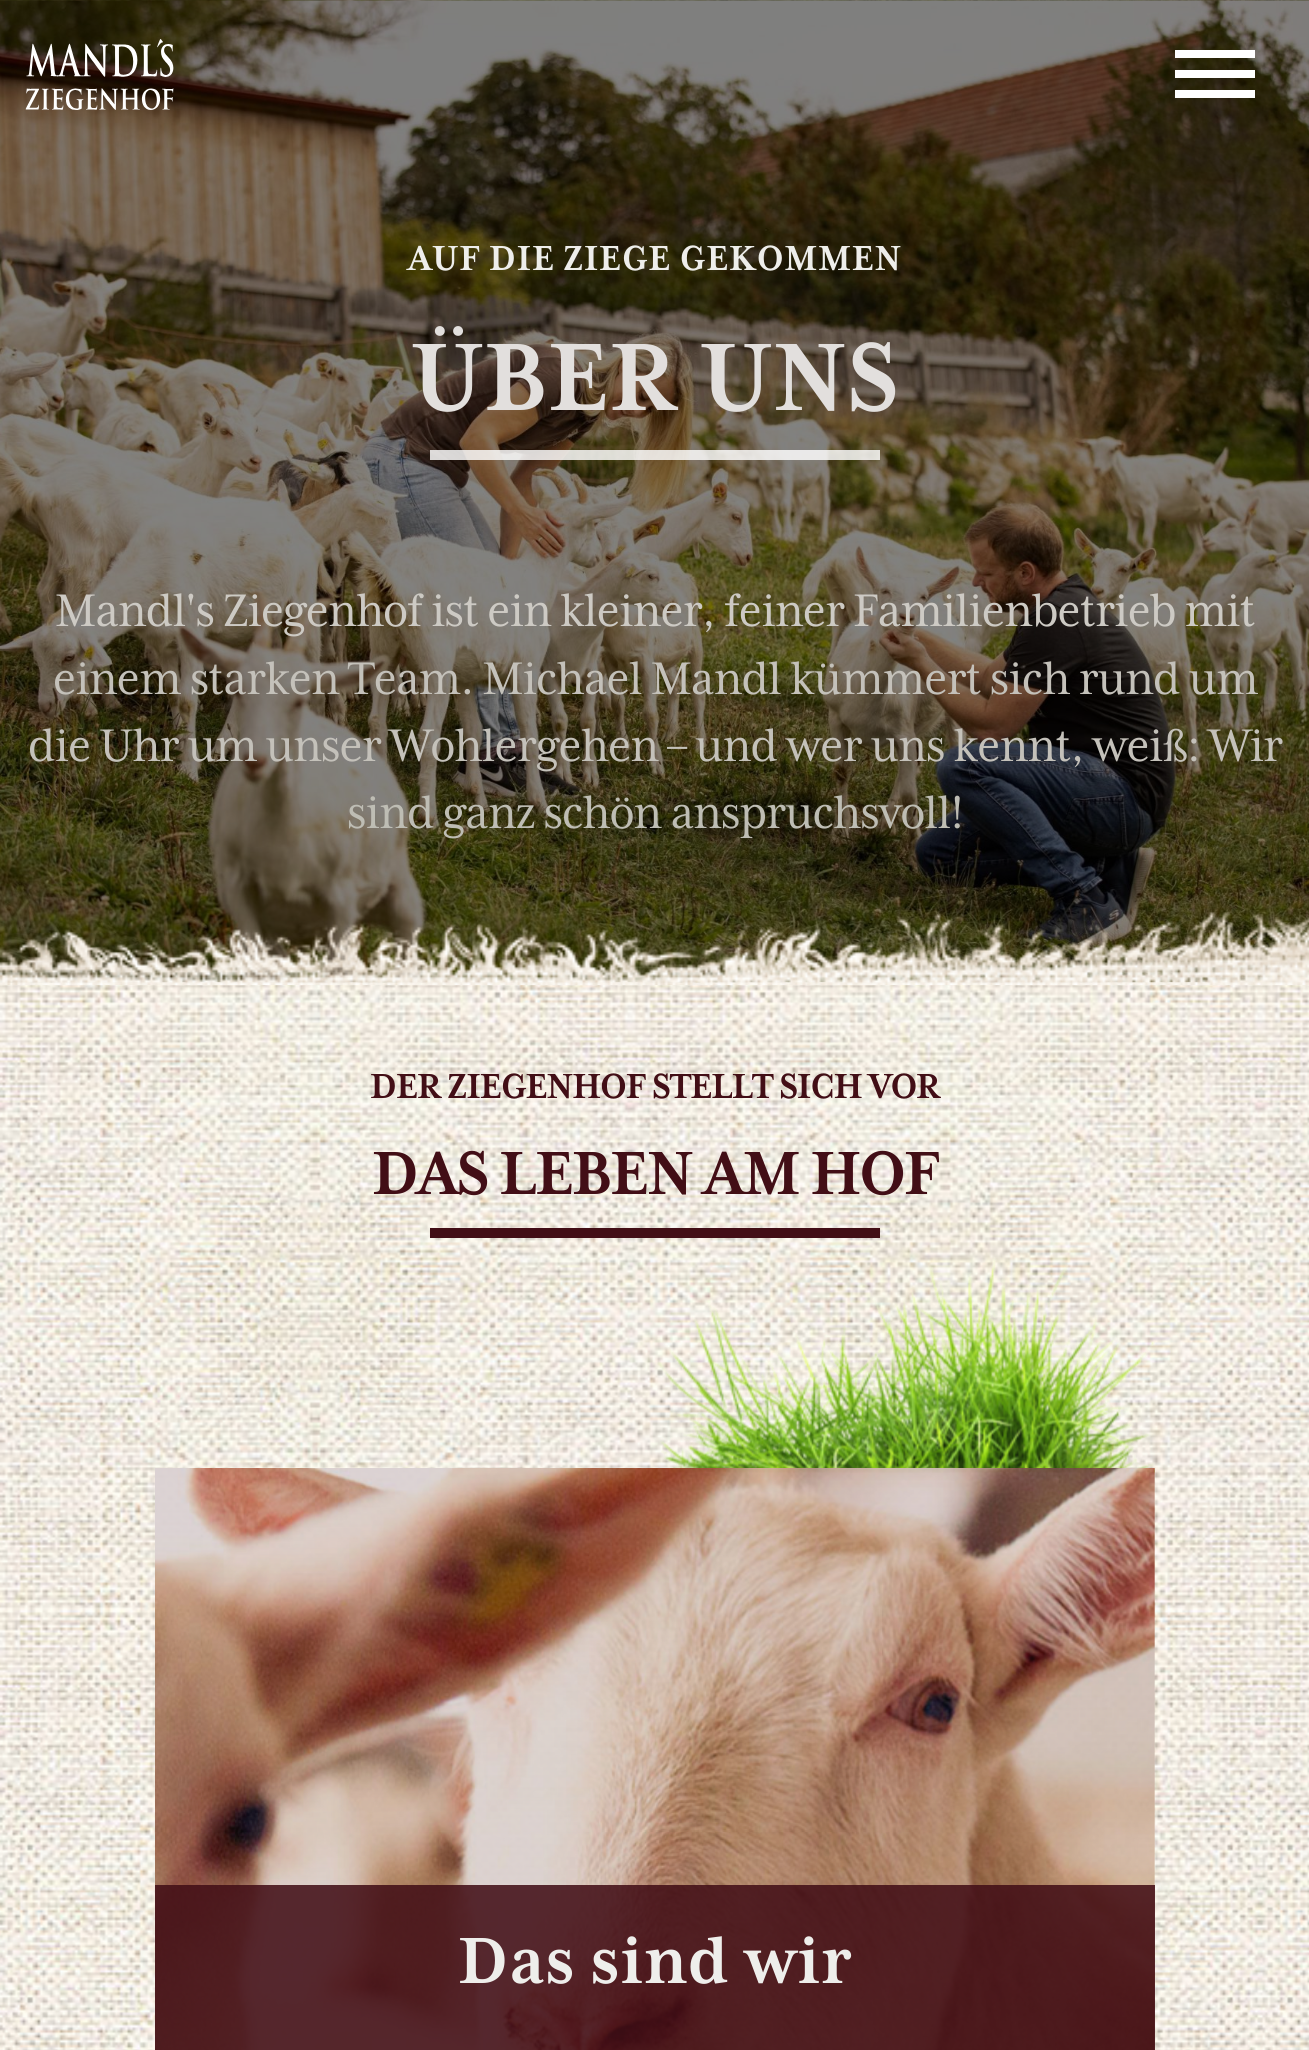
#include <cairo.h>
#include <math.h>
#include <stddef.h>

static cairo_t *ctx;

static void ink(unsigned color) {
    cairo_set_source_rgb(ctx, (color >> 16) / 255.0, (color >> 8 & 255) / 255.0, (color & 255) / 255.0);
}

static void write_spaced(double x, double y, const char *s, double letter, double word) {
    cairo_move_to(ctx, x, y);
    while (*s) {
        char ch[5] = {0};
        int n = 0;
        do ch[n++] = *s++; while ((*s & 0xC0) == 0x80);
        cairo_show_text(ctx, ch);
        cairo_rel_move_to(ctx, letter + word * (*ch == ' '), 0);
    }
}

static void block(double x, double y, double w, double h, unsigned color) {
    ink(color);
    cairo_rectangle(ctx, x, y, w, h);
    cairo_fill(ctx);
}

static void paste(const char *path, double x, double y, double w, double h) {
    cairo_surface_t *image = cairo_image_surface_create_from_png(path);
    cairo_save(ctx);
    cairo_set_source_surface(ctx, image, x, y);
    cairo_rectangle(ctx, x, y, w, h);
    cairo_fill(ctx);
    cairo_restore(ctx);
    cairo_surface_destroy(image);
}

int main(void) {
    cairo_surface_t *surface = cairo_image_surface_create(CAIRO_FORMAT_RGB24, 1309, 2050);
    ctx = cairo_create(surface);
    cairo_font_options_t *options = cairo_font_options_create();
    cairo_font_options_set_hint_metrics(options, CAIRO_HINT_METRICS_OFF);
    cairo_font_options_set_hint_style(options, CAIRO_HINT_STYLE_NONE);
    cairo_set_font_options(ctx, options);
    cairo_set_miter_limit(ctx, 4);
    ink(0xffffff);
    cairo_paint(ctx);
    paste("pic1.png", 0, 0, 1309, 983);
    block(1175, 70, 80, 8, 0xffffff);
    block(1175, 50, 80, 8, 0xffffff);
    block(1175, 90, 80, 8, 0xffffff);
    paste("pic2.png", 25, 39, 149, 71);
    cairo_select_font_face(ctx, "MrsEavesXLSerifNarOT", CAIRO_FONT_SLANT_NORMAL, CAIRO_FONT_WEIGHT_BOLD);
    cairo_set_font_size(ctx, 40);
    ink(0xeeeeeb);
    write_spaced(408, 270, "AUF DIE ZIEGE GEKOMMEN", 0.75, 0);
    cairo_set_font_size(ctx, 110);
    ink(0xe2dfdd);
    write_spaced(411, 410, "ÜBER UNS", 0.75, 0);
    cairo_set_source_rgba(ctx, 1, 1, 1, 0.83);
    cairo_rectangle(ctx, 430, 450, 450, 10);
    cairo_fill(ctx);
    cairo_select_font_face(ctx, "MrsEavesXLSerifNarOT", CAIRO_FONT_SLANT_NORMAL, CAIRO_FONT_WEIGHT_NORMAL);
    cairo_set_font_size(ctx, 52.5);
    ink(0xcdcac4);
    write_spaced(55, 626, "Mandl's Ziegenhof ist ein kleiner, feiner Familienbetrieb mit", -1, 0);
    ink(0xc4c1ba);
    write_spaced(53, 694, "einem starken Team. Michael Mandl kümmert sich rund um", -1, 0);
    write_spaced(28, 761, "die Uhr um unser Wohlergehen – und wer uns kennt, weiß: Wir", -1, 0);
    ink(0xbebdb4);
    write_spaced(347, 828, "sind ganz schön anspruchsvoll!", -1, 0);
    paste("pic3.png", 0, 982, 1309, 1068);
    paste("pic4.png", 0, 910, 1309, 75);
    cairo_select_font_face(ctx, "MrsEavesXLSerifNarOT", CAIRO_FONT_SLANT_NORMAL, CAIRO_FONT_WEIGHT_BOLD);
    cairo_set_font_size(ctx, 40);
    ink(0x420e16);
    write_spaced(370, 1098, "DER ZIEGENHOF STELLT SICH VOR", -1, 0);
    cairo_set_font_size(ctx, 70);
    write_spaced(372, 1194, "DAS LEBEN AM HOF", -1.75, 0);
    block(430, 1228, 450, 10, 0x420e16);
    paste("pic5.png", 657, 1257, 498, 216);
    paste("pic6.png", 155, 1468, 1000, 582);
    cairo_set_source_rgba(ctx, 0.259, 0.055, 0.086, 0.87);
    cairo_rectangle(ctx, 155, 1885, 1000, 165);
    cairo_fill(ctx);
    cairo_set_font_size(ctx, 75);
    ink(0xeeeeeb);
    write_spaced(458, 1983, "Das sind wir", 0.75, 0);
    cairo_surface_write_to_png(surface, "screenshot.png");
    cairo_font_options_destroy(options);
    cairo_destroy(ctx);
    cairo_surface_destroy(surface);
    return 0;
}
